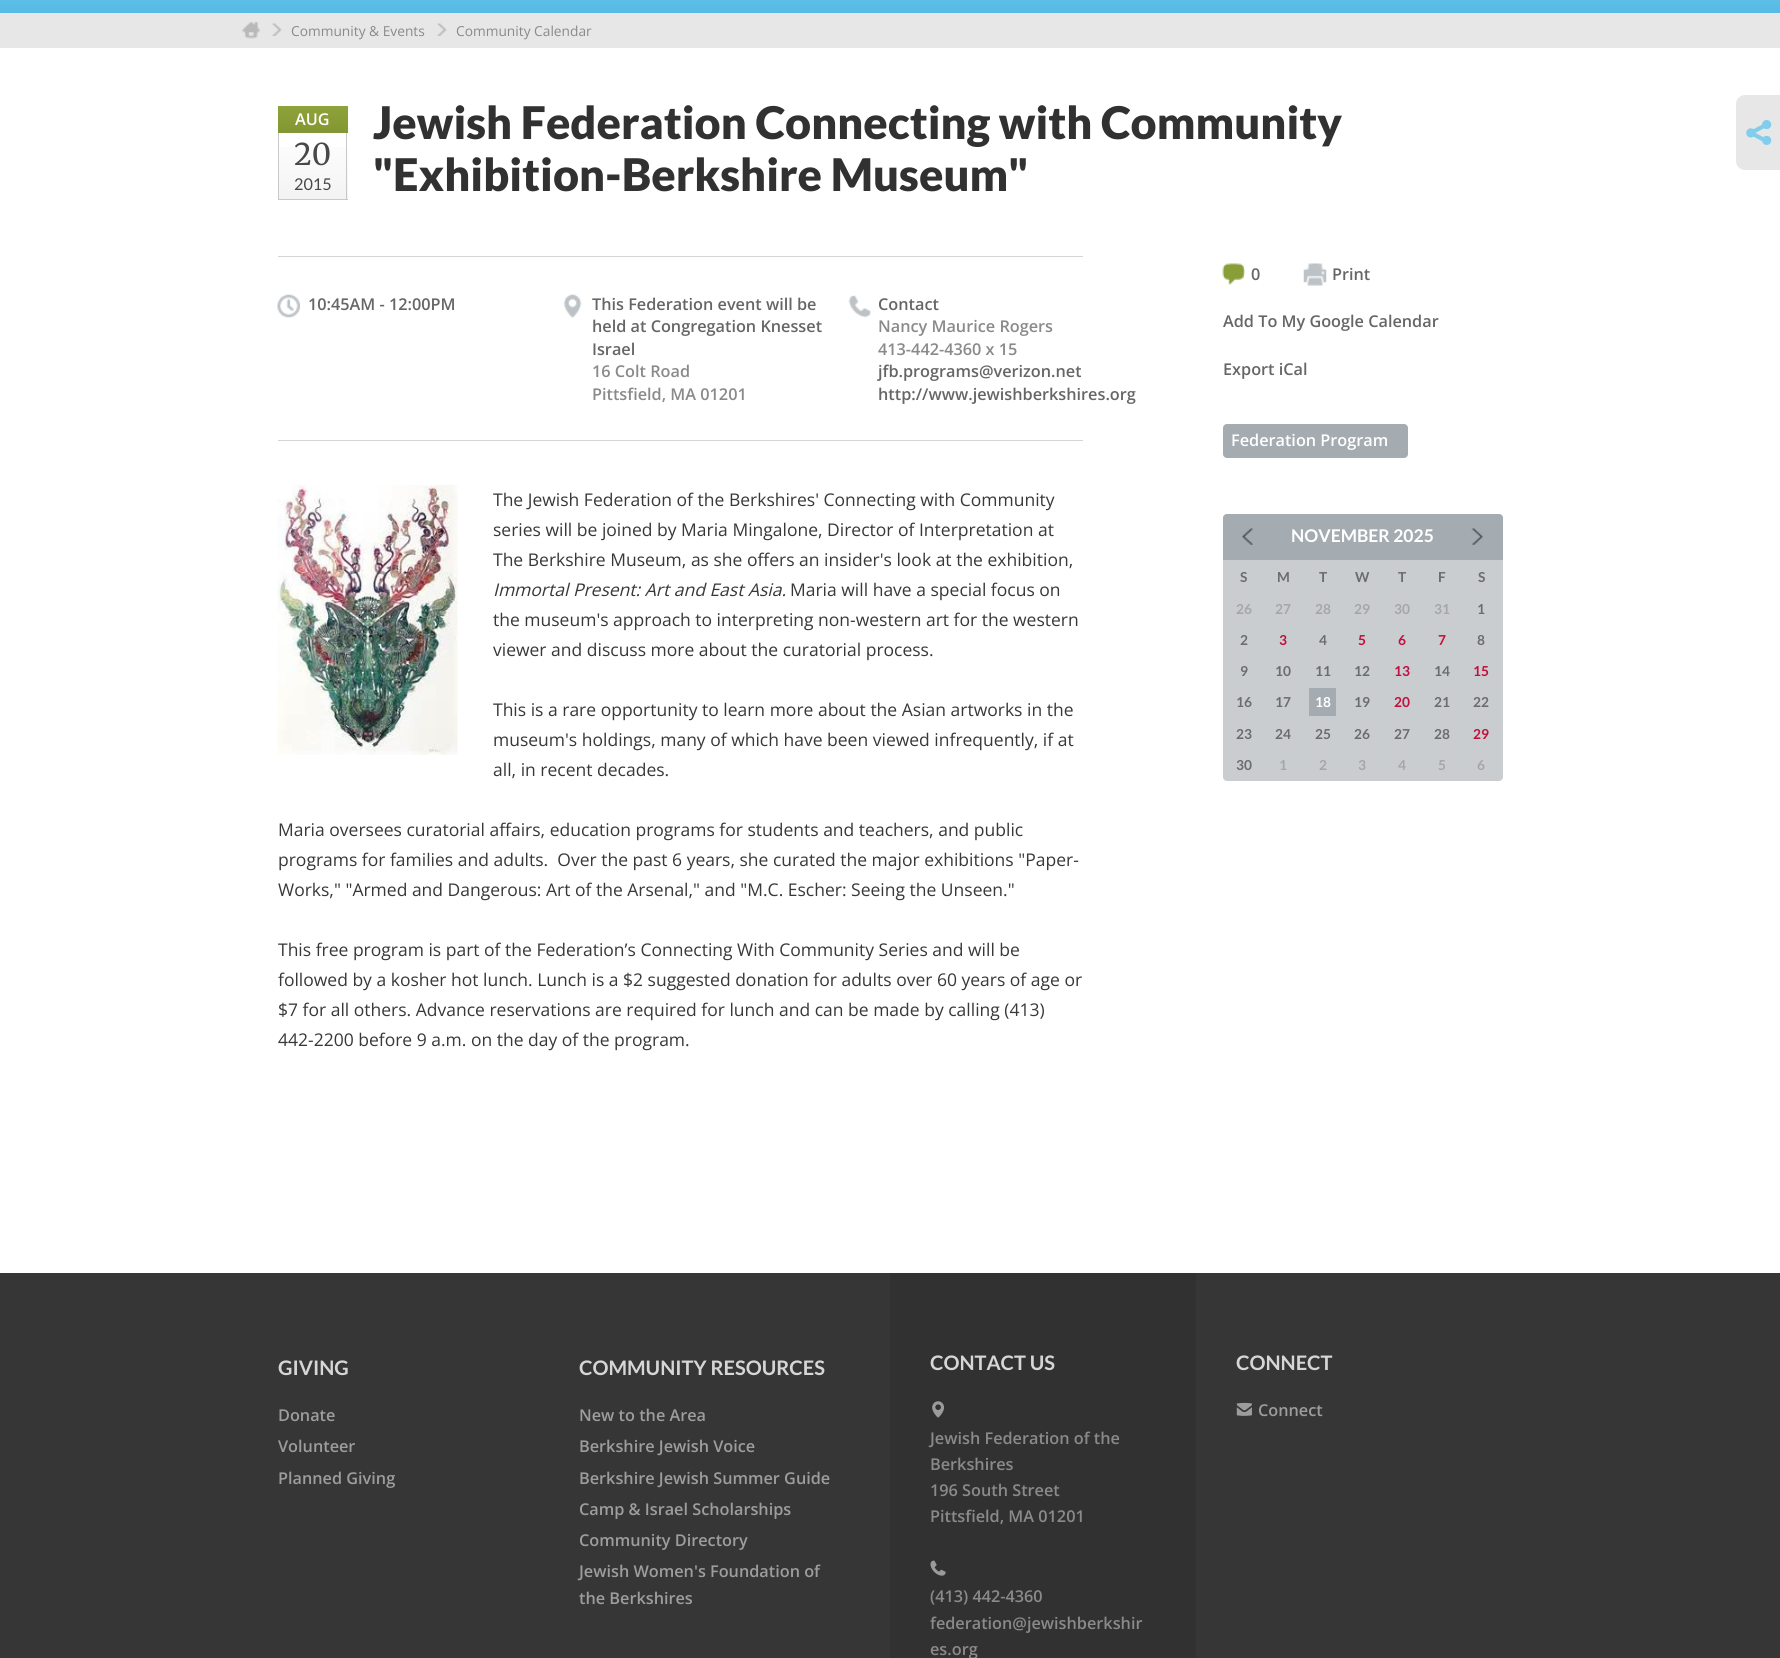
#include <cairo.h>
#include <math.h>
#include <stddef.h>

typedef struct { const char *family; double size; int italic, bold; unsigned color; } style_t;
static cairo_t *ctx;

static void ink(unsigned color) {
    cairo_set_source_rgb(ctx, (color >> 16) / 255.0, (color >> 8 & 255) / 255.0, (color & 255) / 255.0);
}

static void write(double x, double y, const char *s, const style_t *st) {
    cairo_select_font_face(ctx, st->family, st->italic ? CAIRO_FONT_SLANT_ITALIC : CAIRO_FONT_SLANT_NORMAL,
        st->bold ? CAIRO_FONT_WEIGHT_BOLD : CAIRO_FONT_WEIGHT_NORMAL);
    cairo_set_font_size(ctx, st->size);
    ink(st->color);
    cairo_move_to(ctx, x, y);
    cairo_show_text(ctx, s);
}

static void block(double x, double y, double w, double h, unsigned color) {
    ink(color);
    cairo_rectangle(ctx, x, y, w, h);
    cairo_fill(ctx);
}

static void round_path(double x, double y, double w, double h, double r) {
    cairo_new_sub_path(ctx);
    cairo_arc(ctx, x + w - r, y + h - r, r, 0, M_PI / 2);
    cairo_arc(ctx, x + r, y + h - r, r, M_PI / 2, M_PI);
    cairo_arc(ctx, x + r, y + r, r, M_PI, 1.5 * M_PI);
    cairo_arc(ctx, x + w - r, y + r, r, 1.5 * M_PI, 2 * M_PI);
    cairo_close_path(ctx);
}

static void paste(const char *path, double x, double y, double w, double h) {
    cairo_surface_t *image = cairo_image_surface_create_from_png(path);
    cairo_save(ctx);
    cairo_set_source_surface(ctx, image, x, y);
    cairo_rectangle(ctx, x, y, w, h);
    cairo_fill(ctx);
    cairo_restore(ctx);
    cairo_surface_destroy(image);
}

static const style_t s1 = {"Open Sans", 13.75, 0, 0, 0x8a8a8a};
static const style_t s2 = {"Open Sans SemiBold", 16.25, 0, 0, 0xffffff};
static const style_t s3 = {"Merriweather", 30, 0, 0, 0x484848};
static const style_t s4 = {"Lato", 16.25, 0, 0, 0x484848};
static const style_t s5 = {"Lato Black", 45, 0, 0, 0x313131};
static const style_t s6 = {"Open Sans SemiBold", 16.25, 0, 0, 0x666666};
static const style_t s7 = {"Open Sans SemiBold", 16.25, 0, 0, 0x8a8a8a};
static const style_t s8 = {"Open Sans", 17.5, 0, 0, 0x383838};
static const style_t s9 = {"Open Sans", 17.5, 1, 0, 0x383838};
static const style_t s10 = {"Lato", 17.5, 0, 1, 0xffffff};
static const style_t s11 = {"Lato", 13.75, 0, 1, 0x6c6c6c};
static const style_t s12 = {"Lato", 13.75, 0, 1, 0xa6a6a6};
static const style_t s13 = {"Lato", 13.75, 0, 1, 0xc10f3e};
static const style_t s14 = {"Lato", 13.75, 0, 1, 0xffffff};
static const style_t s15 = {"Lato", 20, 0, 1, 0xd6d6d6};
static const style_t s16 = {"Open Sans SemiBold", 16.25, 0, 0, 0x9d9d9d};

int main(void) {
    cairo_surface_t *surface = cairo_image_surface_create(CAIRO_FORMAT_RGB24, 1780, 1658);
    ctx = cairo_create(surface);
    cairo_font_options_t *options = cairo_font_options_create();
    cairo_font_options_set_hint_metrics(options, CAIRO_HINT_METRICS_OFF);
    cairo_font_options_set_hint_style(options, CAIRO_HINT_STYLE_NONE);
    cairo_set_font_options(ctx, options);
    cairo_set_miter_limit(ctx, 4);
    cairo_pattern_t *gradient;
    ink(0xffffff);
    cairo_paint(ctx);
    gradient = cairo_pattern_create_linear(890, -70, 890, 13);
    cairo_pattern_add_color_stop_rgba(gradient, 0, 0.51, 0.804, 0.925, 1);
    cairo_pattern_add_color_stop_rgba(gradient, 1, 0.337, 0.733, 0.898, 1);
    cairo_set_source(ctx, gradient);
    cairo_pattern_destroy(gradient);
    cairo_rectangle(ctx, 0, 0, 1780, 13);
    cairo_fill(ctx);
    block(0, 13, 1780, 35, 0xe7e7e7);
    paste("pic1.png", 242, 22, 18, 17);
    paste("pic2.png", 272, 23, 10, 13);
    write(291, 36, "Community & Events", &s1);
    paste("pic2.png", 437, 23, 10, 13);
    write(456, 36, "Community Calendar", &s1);
    gradient = cairo_pattern_create_linear(313, 106, 313, 133);
    cairo_pattern_add_color_stop_rgba(gradient, 0, 0.557, 0.639, 0.227, 1);
    cairo_pattern_add_color_stop_rgba(gradient, 1, 0.51, 0.588, 0.2, 1);
    cairo_set_source(ctx, gradient);
    cairo_pattern_destroy(gradient);
    cairo_rectangle(ctx, 278, 106, 70, 27);
    cairo_fill(ctx);
    write(295, 125, "AUG", &s2);
    gradient = cairo_pattern_create_linear(313, 133, 313, 199);
    cairo_pattern_add_color_stop_rgba(gradient, 0, 1, 1, 1, 1);
    cairo_pattern_add_color_stop_rgba(gradient, 1, 0.953, 0.953, 0.953, 1);
    cairo_set_source(ctx, gradient);
    cairo_pattern_destroy(gradient);
    cairo_rectangle(ctx, 279, 147, 69, 52);
    cairo_fill(ctx);
    block(346, 133, 1, 67, 0xc9c9c9);
    block(278, 199, 70, 1, 0xc9c9c9);
    block(278, 133, 1, 67, 0xc9c9c9);
    write(294, 165, "20", &s3);
    write(294, 190, "2015", &s4);
    write(373, 139, "Jewish Federation Connecting with Community", &s5);
    write(373, 191, "\"Exhibition-Berkshire Museum\"", &s5);
    block(278, 256, 805, 1, 0xd5d5d5);
    paste("pic3.png", 277, 294, 23, 24);
    write(308, 310, "10:45AM - 12:00PM", &s6);
    paste("pic4.png", 563, 294, 19, 24);
    write(592, 310, "This Federation event will be", &s6);
    write(592, 332, "held at Congregation Knesset", &s6);
    write(592, 355, "Israel", &s6);
    write(592, 377, "16 Colt Road", &s7);
    write(592, 400, "Pittsfield, MA 01201", &s7);
    paste("pic5.png", 848, 295, 24, 23);
    write(878, 310, "Contact", &s6);
    write(878, 332, "Nancy Maurice Rogers", &s7);
    write(878, 355, "413-442-4360 x 15", &s7);
    write(878, 377, "jfb.programs@verizon.net", &s6);
    write(878, 400, "http://www.jewishberkshires.org", &s6);
    block(278, 440, 805, 1, 0xd5d5d5);
    paste("pic6.png", 277, 484, 181, 271);
    write(493, 506, "The Jewish Federation of the Berkshires' Connecting with Community", &s8);
    write(493, 536, "series will be joined by Maria Mingalone, Director of Interpretation at", &s8);
    write(493, 566, "The Berkshire Museum, as she offers an insider's look at the exhibition,", &s8);
    write(493, 596, "Immortal Present: Art and East Asia.", &s9);
    write(790, 596, "Maria will have a special focus on", &s8);
    write(493, 626, "the museum's approach to interpreting non-western art for the western", &s8);
    write(493, 656, "viewer and discuss more about the curatorial process.", &s8);
    write(493, 716, "This is a rare opportunity to learn more about the Asian artworks in the", &s8);
    write(493, 746, "museum's holdings, many of which have been viewed infrequently, if at", &s8);
    write(493, 776, "all, in recent decades.", &s8);
    write(278, 836, "Maria oversees curatorial affairs, education programs for students and teachers, and public", &s8);
    write(278, 866, "programs for families and adults.  Over the past 6 years, she curated the major exhibitions \"Paper-", &s8);
    write(278, 896, "Works,\" \"Armed and Dangerous: Art of the Arsenal,\" and \"M.C. Escher: Seeing the Unseen.\"", &s8);
    write(278, 956, "This free program is part of the Federation’s Connecting With Community Series and will be", &s8);
    write(278, 986, "followed by a kosher hot lunch. Lunch is a $2 suggested donation for adults over 60 years of age or", &s8);
    write(278, 1016, "$7 for all others. Advance reservations are required for lunch and can be made by calling (413)", &s8);
    write(278, 1046, "442-2200 before 9 a.m. on the day of the program.", &s8);
    paste("pic7.png", 1222, 263, 23, 22);
    write(1251, 280, "0", &s6);
    paste("pic8.png", 1303, 263, 24, 23);
    write(1332, 280, "Print", &s6);
    write(1223, 327, "Add To My Google Calendar", &s6);
    write(1223, 375, "Export iCal", &s6);
    ink(0xa4acb1);
    round_path(1223, 424, 185, 34, 4);
    cairo_fill(ctx);
    write(1231, 446, "Federation Program", &s2);
    ink(0xcacdcf);
    round_path(1223, 514, 280, 267, 4);
    cairo_fill(ctx);
    ink(0xa4acb1);
    cairo_new_path(ctx);
    cairo_move_to(ctx, 1227, 514);
    cairo_line_to(ctx, 1499, 514);
    cairo_curve_to(ctx, 1501, 514, 1503, 516, 1503, 518);
    cairo_line_to(ctx, 1503, 560);
    cairo_line_to(ctx, 1223, 560);
    cairo_line_to(ctx, 1223, 518);
    cairo_curve_to(ctx, 1223, 516, 1225, 514, 1227, 514);
    cairo_close_path(ctx);
    cairo_fill(ctx);
    paste("pic9.png", 1242, 528, 11, 17);
    write(1291, 542, "NOVEMBER 2025", &s10);
    paste("pic10.png", 1471, 528, 12, 17);
    write(1240, 582, "S", &s11);
    write(1277, 582, "M", &s11);
    write(1319, 582, "T", &s11);
    write(1355, 582, "W", &s11);
    write(1398, 582, "T", &s11);
    write(1438, 582, "F", &s11);
    write(1478, 582, "S", &s11);
    write(1236, 614, "26", &s12);
    write(1275, 614, "27", &s12);
    write(1315, 614, "28", &s12);
    write(1354, 614, "29", &s12);
    write(1394, 614, "30", &s12);
    write(1434, 614, "31", &s12);
    write(1477, 614, "1", &s11);
    write(1240, 645, "2", &s11);
    write(1279, 645, "3", &s13);
    write(1319, 645, "4", &s11);
    write(1358, 645, "5", &s13);
    write(1398, 645, "6", &s13);
    write(1438, 645, "7", &s13);
    write(1477, 645, "8", &s11);
    write(1240, 676, "9", &s11);
    write(1275, 676, "10", &s11);
    write(1315, 676, "11", &s11);
    write(1354, 676, "12", &s11);
    write(1394, 676, "13", &s13);
    write(1434, 676, "14", &s11);
    write(1473, 676, "15", &s13);
    write(1236, 707, "16", &s11);
    write(1275, 707, "17", &s11);
    block(1309, 688, 27, 28, 0xa4acb1);
    write(1315, 707, "18", &s14);
    write(1354, 707, "19", &s11);
    write(1394, 707, "20", &s13);
    write(1434, 707, "21", &s11);
    write(1473, 707, "22", &s11);
    write(1236, 739, "23", &s11);
    write(1275, 739, "24", &s11);
    write(1315, 739, "25", &s11);
    write(1354, 739, "26", &s11);
    write(1394, 739, "27", &s11);
    write(1434, 739, "28", &s11);
    write(1473, 739, "29", &s13);
    write(1236, 770, "30", &s11);
    write(1279, 770, "1", &s12);
    write(1319, 770, "2", &s12);
    write(1358, 770, "3", &s12);
    write(1398, 770, "4", &s12);
    write(1438, 770, "5", &s12);
    write(1477, 770, "6", &s12);
    ink(0xe7e7e7);
    cairo_new_path(ctx);
    cairo_move_to(ctx, 1746, 91);
    cairo_line_to(ctx, 1780, 91);
    cairo_line_to(ctx, 1780, 174);
    cairo_line_to(ctx, 1746, 174);
    cairo_curve_to(ctx, 1739, 174, 1733, 168, 1733, 161);
    cairo_line_to(ctx, 1733, 104);
    cairo_curve_to(ctx, 1733, 97, 1739, 91, 1746, 91);
    cairo_close_path(ctx);
    cairo_fill(ctx);
    ink(0xffffff);
    cairo_set_fill_rule(ctx, CAIRO_FILL_RULE_EVEN_ODD);
    cairo_new_path(ctx);
    cairo_move_to(ctx, 1745, 91);
    cairo_line_to(ctx, 1780, 91);
    cairo_line_to(ctx, 1780, 174);
    cairo_line_to(ctx, 1745, 174);
    cairo_curve_to(ctx, 1738, 174, 1732, 168, 1732, 161);
    cairo_line_to(ctx, 1732, 104);
    cairo_curve_to(ctx, 1732, 97, 1738, 91, 1745, 91);
    cairo_close_path(ctx);
    cairo_move_to(ctx, 1745, 95);
    cairo_line_to(ctx, 1780, 95);
    cairo_line_to(ctx, 1780, 170);
    cairo_line_to(ctx, 1745, 170);
    cairo_curve_to(ctx, 1740, 170, 1736, 166, 1736, 161);
    cairo_line_to(ctx, 1736, 104);
    cairo_curve_to(ctx, 1736, 99, 1740, 95, 1745, 95);
    cairo_close_path(ctx);
    cairo_fill(ctx);
    paste("pic11.png", 1746, 120, 26, 25);
    block(0, 1273, 1780, 385, 0x363636);
    write(278, 1375, "GIVING", &s15);
    write(278, 1421, "Donate", &s16);
    write(278, 1452, "Volunteer", &s16);
    write(278, 1484, "Planned Giving", &s16);
    write(579, 1375, "COMMUNITY RESOURCES", &s15);
    write(579, 1421, "New to the Area", &s16);
    write(579, 1452, "Berkshire Jewish Voice", &s16);
    write(579, 1484, "Berkshire Jewish Summer Guide", &s16);
    write(579, 1515, "Camp & Israel Scholarships", &s16);
    write(579, 1546, "Community Directory", &s16);
    write(579, 1577, "Jewish Women's Foundation of", &s16);
    write(579, 1604, "the Berkshires", &s16);
    block(890, 1273, 306, 385, 0x313131);
    write(930, 1370, "CONTACT US", &s15);
    paste("pic12.png", 932, 1401, 13, 17);
    write(930, 1444, "Jewish Federation of the", &s7);
    write(930, 1470, "Berkshires", &s7);
    write(930, 1496, "196 South Street", &s7);
    write(930, 1522, "Pittsfield, MA 01201", &s7);
    paste("pic13.png", 930, 1560, 16, 16);
    write(930, 1602, "(413) 442-4360", &s7);
    write(930, 1629, "federation@jewishberkshir", &s7);
    write(930, 1655, "es.org", &s7);
    write(1236, 1370, "CONNECT", &s15);
    paste("pic14.png", 1236, 1402, 16, 14);
    write(1258, 1416, "Connect", &s16);
    cairo_surface_write_to_png(surface, "screenshot.png");
    cairo_font_options_destroy(options);
    cairo_destroy(ctx);
    cairo_surface_destroy(surface);
    return 0;
}
